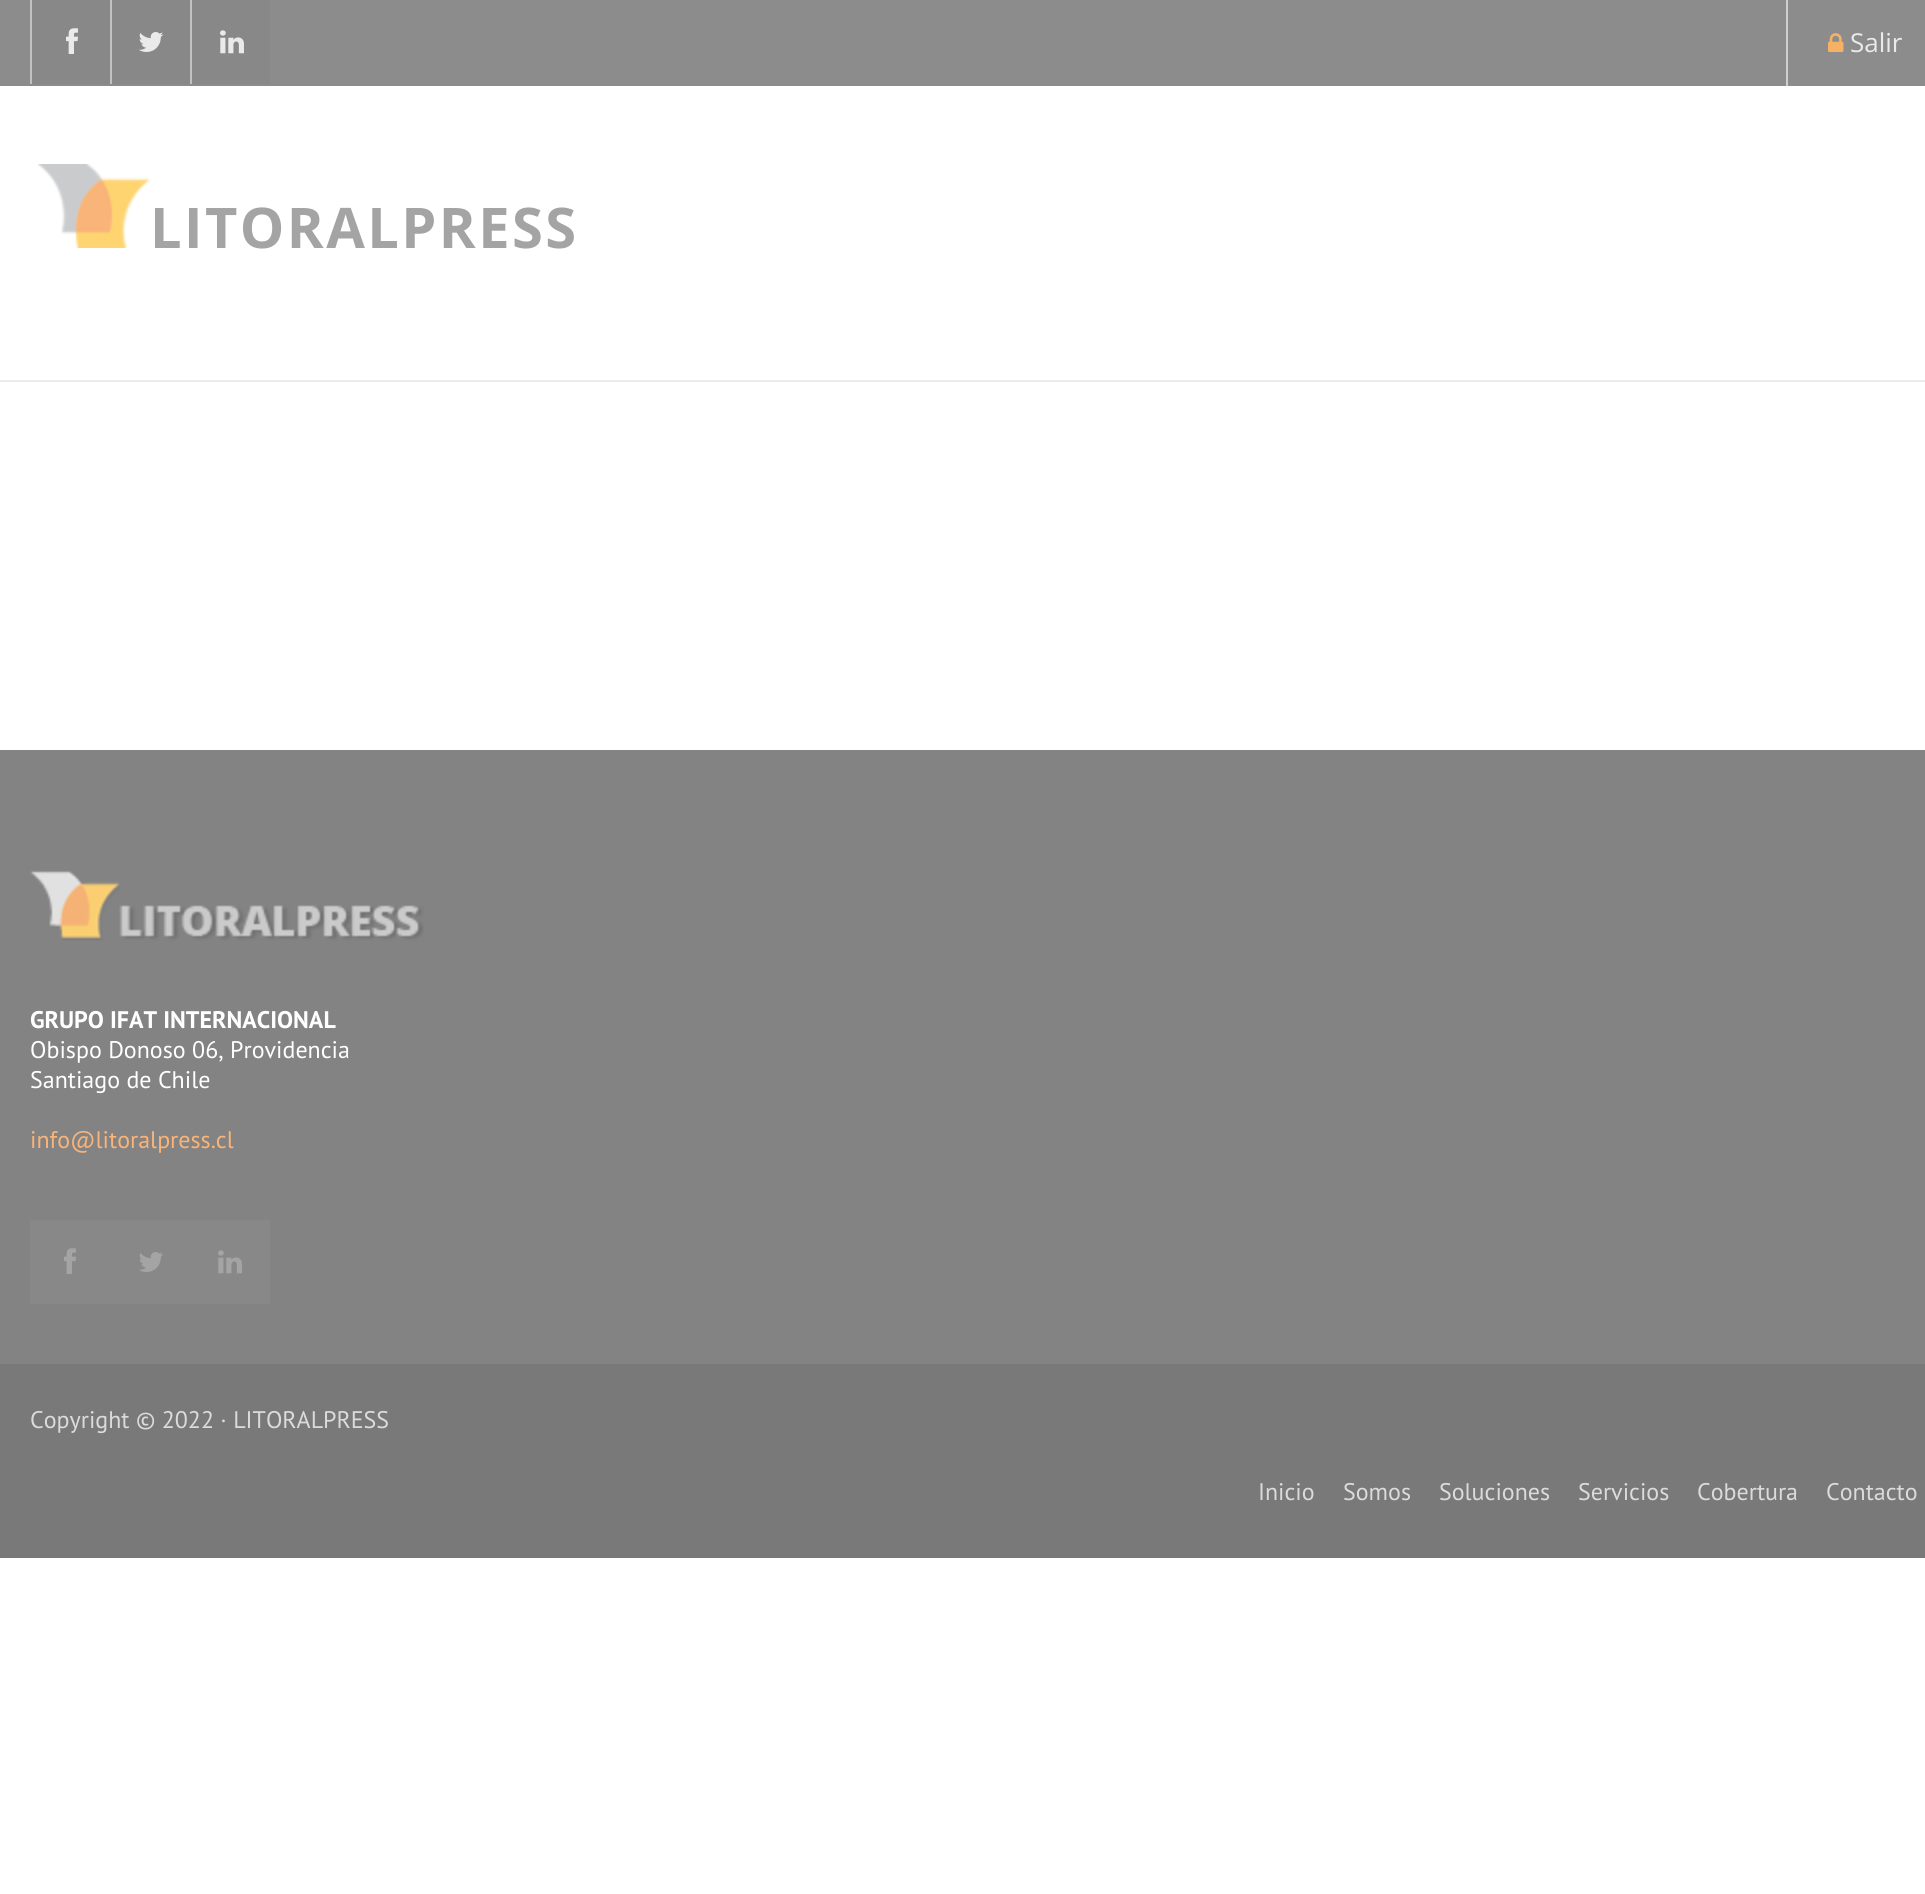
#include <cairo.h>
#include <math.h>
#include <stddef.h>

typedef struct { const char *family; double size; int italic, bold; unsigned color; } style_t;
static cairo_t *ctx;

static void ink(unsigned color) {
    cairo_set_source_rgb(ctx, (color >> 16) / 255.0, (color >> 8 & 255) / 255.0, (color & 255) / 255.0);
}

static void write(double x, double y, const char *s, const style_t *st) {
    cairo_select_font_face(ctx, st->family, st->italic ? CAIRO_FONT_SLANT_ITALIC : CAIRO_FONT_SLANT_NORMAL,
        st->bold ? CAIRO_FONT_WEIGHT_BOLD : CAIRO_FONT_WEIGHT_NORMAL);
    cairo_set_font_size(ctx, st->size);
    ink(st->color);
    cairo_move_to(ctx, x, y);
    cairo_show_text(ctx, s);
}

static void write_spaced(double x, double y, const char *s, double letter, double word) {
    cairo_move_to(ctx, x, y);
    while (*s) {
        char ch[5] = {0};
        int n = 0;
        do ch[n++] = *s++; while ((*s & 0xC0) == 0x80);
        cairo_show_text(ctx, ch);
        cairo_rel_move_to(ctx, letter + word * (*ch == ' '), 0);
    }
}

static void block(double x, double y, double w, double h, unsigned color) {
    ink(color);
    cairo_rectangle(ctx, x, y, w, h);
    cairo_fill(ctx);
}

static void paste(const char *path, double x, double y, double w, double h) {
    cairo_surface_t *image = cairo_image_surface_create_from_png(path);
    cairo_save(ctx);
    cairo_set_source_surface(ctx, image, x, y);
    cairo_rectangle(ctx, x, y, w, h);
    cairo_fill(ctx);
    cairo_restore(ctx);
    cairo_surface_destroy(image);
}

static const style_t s1 = {"Open Sans", 26, 0, 0, 0xeaeaea};
static const style_t s2 = {"PT Sans", 24, 0, 1, 0xffffff};
static const style_t s3 = {"PT Sans", 24, 0, 0, 0xffffff};
static const style_t s4 = {"PT Sans", 24, 0, 0, 0xf9b479};
static const style_t s5 = {"PT Sans", 24, 0, 0, 0xdbdbdb};

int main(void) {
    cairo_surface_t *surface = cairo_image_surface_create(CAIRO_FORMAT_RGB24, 1925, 1894);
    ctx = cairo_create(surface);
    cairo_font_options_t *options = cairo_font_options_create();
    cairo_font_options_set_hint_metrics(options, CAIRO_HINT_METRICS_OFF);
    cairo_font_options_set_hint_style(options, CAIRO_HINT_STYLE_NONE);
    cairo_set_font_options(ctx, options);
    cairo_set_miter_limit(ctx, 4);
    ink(0xffffff);
    cairo_paint(ctx);
    block(0, 0, 1925, 86, 0x8c8c8c);
    block(32, 0, 78, 84, 0x888888);
    block(30, 0, 2, 84, 0xc2c2c2);
    paste("pic1.png", 66, 28, 12, 26);
    block(112, 0, 78, 84, 0x888888);
    block(110, 0, 2, 84, 0xc2c2c2);
    paste("pic2.png", 138, 32, 26, 20);
    block(192, 0, 78, 84, 0x888888);
    block(190, 0, 2, 84, 0xc2c2c2);
    paste("pic3.png", 220, 30, 24, 24);
    block(1786, 0, 2, 86, 0xcfcece);
    paste("pic4.png", 1828, 33, 16, 19);
    write(1850, 52, "Salir", &s1);
    paste("pic5.png", 38, 164, 113, 84);
    cairo_select_font_face(ctx, "Open Sans", CAIRO_FONT_SLANT_NORMAL, CAIRO_FONT_WEIGHT_BOLD);
    cairo_set_font_size(ctx, 56);
    ink(0xa4a4a4);
    write_spaced(150, 248, "LITORALPRESS", 2.4, 0);
    block(0, 380, 1925, 2, 0xebebeb);
    block(0, 750, 1925, 614, 0x838383);
    paste("pic6.png", 30, 870, 394, 71);
    write(30, 1028, "GRUPO IFAT INTERNACIONAL", &s2);
    write(30, 1058, "Obispo Donoso 06, Providencia", &s3);
    write(30, 1088, "Santiago de Chile", &s3);
    write(30, 1148, "info@litoralpress.cl", &s4);
    block(30, 1220, 240, 84, 0x888888);
    paste("pic7.png", 64, 1248, 12, 26);
    paste("pic8.png", 139, 1252, 24, 20);
    paste("pic9.png", 218, 1250, 24, 24);
    block(0, 1364, 1925, 194, 0x797979);
    write(30, 1428, "Copyright © 2022 · LITORALPRESS", &s5);
    write(1258, 1500, "Inicio", &s5);
    write(1343, 1500, "Somos", &s5);
    write(1439, 1500, "Soluciones", &s5);
    write(1578, 1500, "Servicios", &s5);
    write(1697, 1500, "Cobertura", &s5);
    write(1826, 1500, "Contacto", &s5);
    cairo_surface_write_to_png(surface, "screenshot.png");
    cairo_font_options_destroy(options);
    cairo_destroy(ctx);
    cairo_surface_destroy(surface);
    return 0;
}
